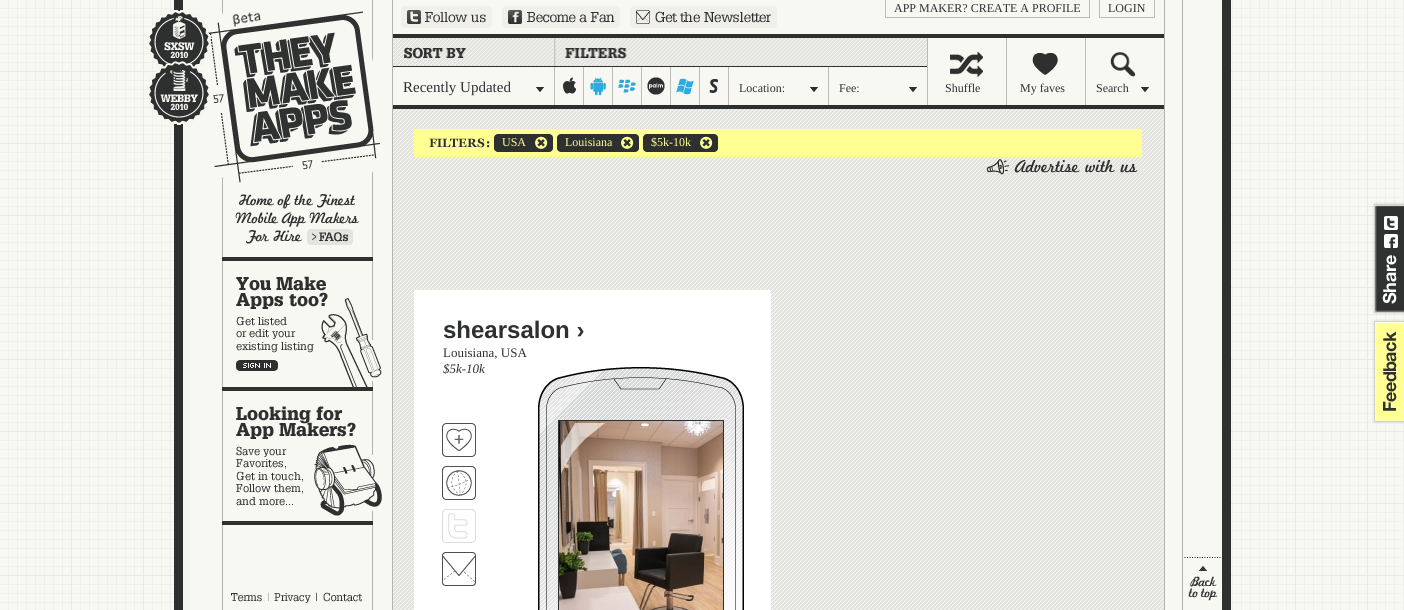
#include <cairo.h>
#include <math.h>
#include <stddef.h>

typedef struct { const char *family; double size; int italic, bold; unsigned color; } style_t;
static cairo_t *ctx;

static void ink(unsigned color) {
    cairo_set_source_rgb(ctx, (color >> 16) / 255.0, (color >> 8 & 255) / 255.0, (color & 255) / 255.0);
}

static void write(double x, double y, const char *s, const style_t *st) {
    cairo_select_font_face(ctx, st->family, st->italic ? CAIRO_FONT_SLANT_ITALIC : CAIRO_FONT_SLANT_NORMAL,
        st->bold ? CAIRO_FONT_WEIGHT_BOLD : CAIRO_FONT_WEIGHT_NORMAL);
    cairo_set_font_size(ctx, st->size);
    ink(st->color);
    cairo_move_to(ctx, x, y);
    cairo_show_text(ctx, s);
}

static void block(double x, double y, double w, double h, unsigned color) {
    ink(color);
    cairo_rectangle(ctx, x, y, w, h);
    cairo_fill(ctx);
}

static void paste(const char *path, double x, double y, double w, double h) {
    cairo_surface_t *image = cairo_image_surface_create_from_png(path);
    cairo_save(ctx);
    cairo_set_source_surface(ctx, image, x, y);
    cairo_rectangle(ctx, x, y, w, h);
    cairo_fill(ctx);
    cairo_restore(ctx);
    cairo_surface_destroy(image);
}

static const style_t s1 = {"Liberation Serif", 12, 0, 0, 0x2e3030};
static const style_t s2 = {"Liberation Serif", 15, 0, 0, 0x2e3030};
static const style_t s3 = {"Liberation Serif", 12, 0, 0, 0xffff94};
static const style_t s4 = {"Liberation Sans", 24, 0, 1, 0x2e3030};
static const style_t s5 = {"Liberation Serif", 13, 0, 0, 0x2e3030};
static const style_t s6 = {"Liberation Serif", 13, 1, 0, 0x2e3030};

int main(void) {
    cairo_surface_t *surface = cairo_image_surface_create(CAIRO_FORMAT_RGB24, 1404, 610);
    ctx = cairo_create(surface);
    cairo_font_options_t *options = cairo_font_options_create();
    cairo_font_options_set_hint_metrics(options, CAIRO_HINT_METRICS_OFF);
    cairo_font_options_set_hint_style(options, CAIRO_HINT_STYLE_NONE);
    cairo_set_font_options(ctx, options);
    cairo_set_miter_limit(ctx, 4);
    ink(0xffffff);
    cairo_paint(ctx);
    paste("pic1.png", 0, 0, 1404, 610);
    paste("pic2.png", 183, 0, 1039, 610);
    block(1222, 0, 9, 610, 0x2e3030);
    block(174, 0, 9, 610, 0x2e3030);
    paste("pic4.png", 204, 11, 176, 172);
    paste("pic3.png", 147, 10, 64, 115);
    paste("pic5.png", 401, 6, 91, 22);
    paste("pic6.png", 502, 6, 118, 22);
    paste("pic7.png", 630, 6, 147, 22);
    block(1089, 0, 1, 18, 0xbbbcb8);
    block(885, 17, 205, 1, 0xbbbcb8);
    block(885, 0, 1, 18, 0xbbbcb8);
    write(894, 12, "APP MAKER? CREATE A PROFILE", &s1);
    block(1154, 0, 1, 18, 0xbbbcb8);
    block(1099, 17, 56, 1, 0xbbbcb8);
    block(1099, 0, 1, 18, 0xbbbcb8);
    write(1108, 12, "LOGIN", &s1);
    paste("pic8.png", 393, 38, 534, 29);
    block(393, 34, 771, 4, 0x2e3030);
    block(393, 105, 771, 4, 0x2e3030);
    paste("pic9.png", 536, 67, 19, 38);
    write(403, 92, "Recently Updated", &s2);
    paste("pic10.png", 563, 67, 21, 38);
    paste("pic11.png", 590, 67, 23, 38);
    paste("pic12.png", 618, 67, 24, 38);
    paste("pic13.png", 647, 67, 24, 38);
    paste("pic14.png", 676, 67, 24, 38);
    paste("pic15.png", 709, 67, 20, 38);
    paste("pic9.png", 810, 67, 19, 38);
    write(739, 92, "Location:", &s1);
    paste("pic16.png", 909, 87, 8, 5);
    write(839, 92, "Fee:", &s1);
    paste("pic17.png", 927, 38, 56, 67);
    write(945, 92, "Shuffle", &s1);
    paste("pic18.png", 1006, 38, 52, 67);
    write(1020, 92, "My faves", &s1);
    paste("pic19.png", 1085, 38, 64, 67);
    write(1096, 92, "Search", &s1);
    paste("pic20.png", 222, 194, 151, 331);
    paste("pic21.png", 307, 229, 46, 16);
    paste("pic22.png", 236, 276, 146, 111);
    paste("pic23.png", 236, 406, 146, 110);
    paste("pic24.png", 393, 109, 771, 501);
    paste("pic25.png", 414, 129, 728, 28);
    block(498, 134, 37, 18, 0x2e3030);
    paste("pic26.png", 535, 134, 18, 18);
    paste("pic27.png", 494, 134, 4, 18);
    write(502, 146, "USA", &s3);
    block(561, 134, 60, 18, 0x2e3030);
    paste("pic26.png", 621, 134, 18, 18);
    paste("pic27.png", 557, 134, 4, 18);
    write(565, 146, "Louisiana", &s3);
    block(647, 134, 53, 18, 0x2e3030);
    paste("pic26.png", 700, 134, 18, 18);
    paste("pic27.png", 643, 134, 4, 18);
    write(651, 146, "$5k-10k", &s3);
    paste("pic28.png", 986, 159, 152, 16);
    block(414, 290, 357, 320, 0xffffff);
    write(443, 338, "shearsalon ›", &s4);
    write(443, 357, "Louisiana, USA", &s5);
    write(443, 373, "$5k-10k", &s6);
    paste("pic29.png", 442, 423, 34, 34);
    paste("pic30.png", 442, 466, 34, 34);
    paste("pic31.png", 442, 509, 34, 34);
    paste("pic32.png", 442, 552, 34, 34);
    paste("pic33.png", 538, 367, 206, 243);
    cairo_rectangle(ctx, 558.5, 420.5, 165, 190);
    cairo_set_line_width(ctx, 1);
    cairo_stroke(ctx);
    paste("pic34.png", 559, 421, 164, 189);
    paste("pic35.png", 231, 592, 38, 10);
    paste("pic36.png", 268, 592, 49, 11);
    paste("pic37.png", 323, 592, 39, 10);
    paste("pic38.png", 1184, 557, 37, 44);
    paste("pic39.png", 1372, 202, 32, 113);
    paste("pic40.png", 1372, 319, 32, 105);
    cairo_surface_write_to_png(surface, "screenshot.png");
    cairo_font_options_destroy(options);
    cairo_destroy(ctx);
    cairo_surface_destroy(surface);
    return 0;
}
